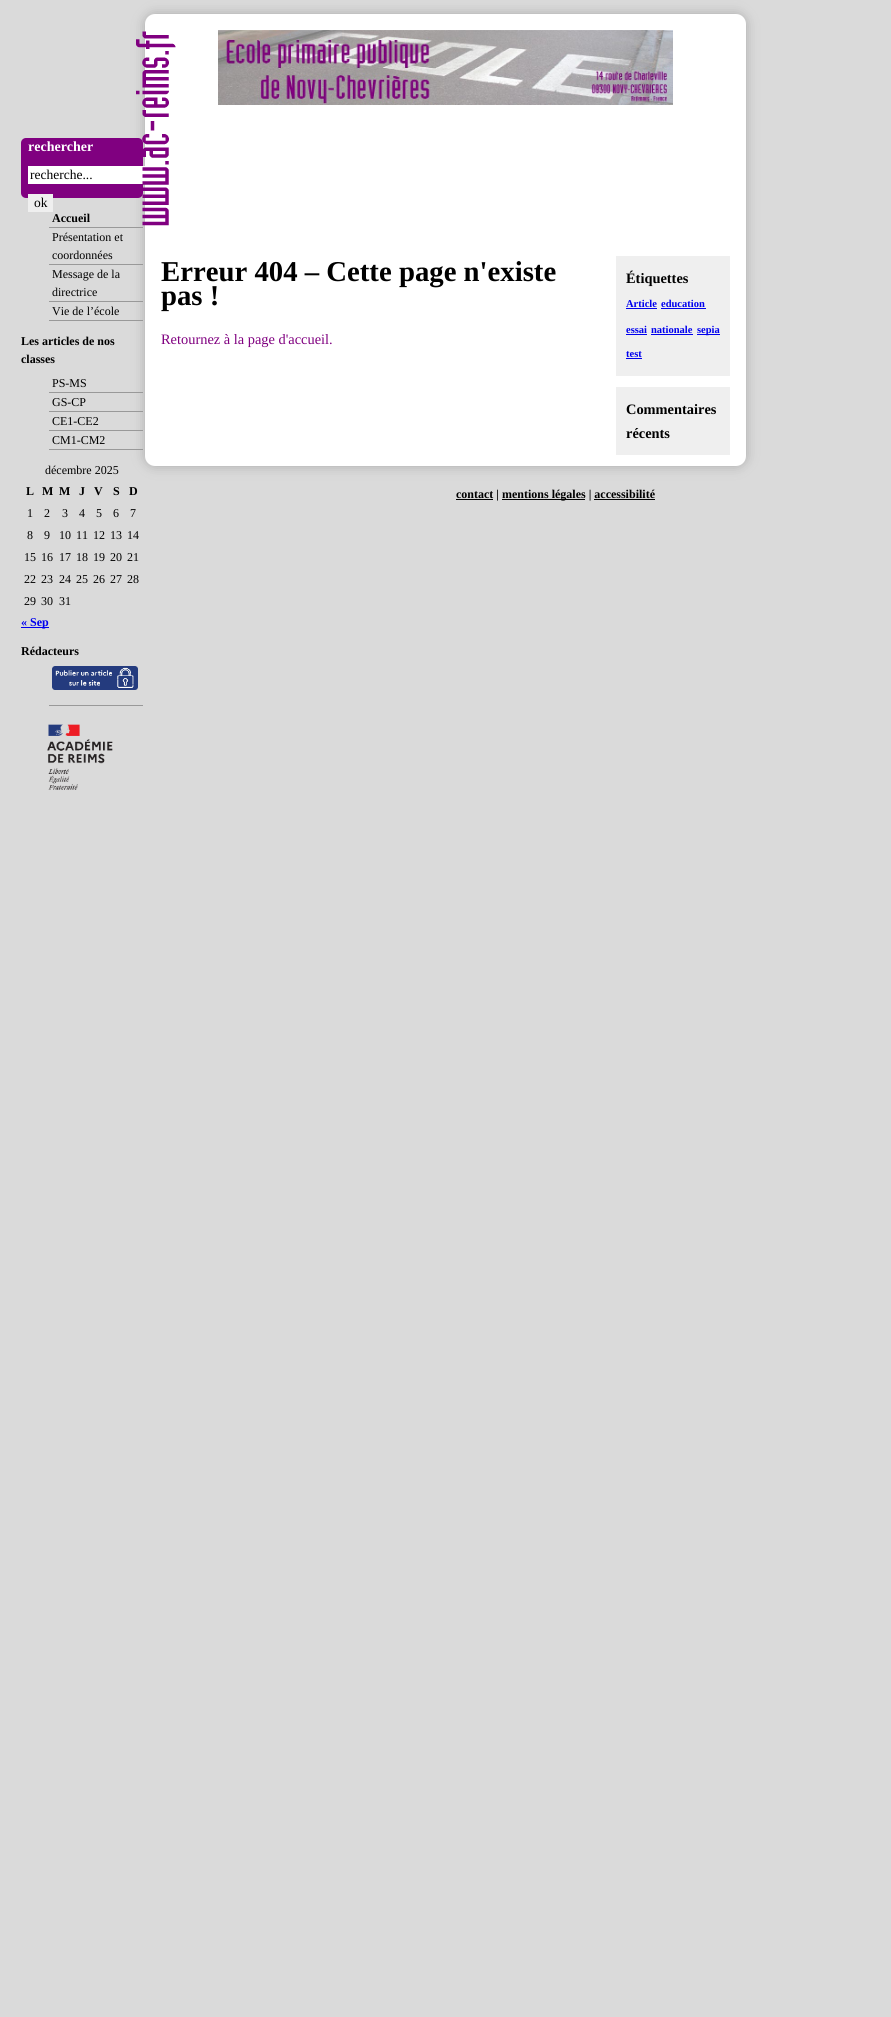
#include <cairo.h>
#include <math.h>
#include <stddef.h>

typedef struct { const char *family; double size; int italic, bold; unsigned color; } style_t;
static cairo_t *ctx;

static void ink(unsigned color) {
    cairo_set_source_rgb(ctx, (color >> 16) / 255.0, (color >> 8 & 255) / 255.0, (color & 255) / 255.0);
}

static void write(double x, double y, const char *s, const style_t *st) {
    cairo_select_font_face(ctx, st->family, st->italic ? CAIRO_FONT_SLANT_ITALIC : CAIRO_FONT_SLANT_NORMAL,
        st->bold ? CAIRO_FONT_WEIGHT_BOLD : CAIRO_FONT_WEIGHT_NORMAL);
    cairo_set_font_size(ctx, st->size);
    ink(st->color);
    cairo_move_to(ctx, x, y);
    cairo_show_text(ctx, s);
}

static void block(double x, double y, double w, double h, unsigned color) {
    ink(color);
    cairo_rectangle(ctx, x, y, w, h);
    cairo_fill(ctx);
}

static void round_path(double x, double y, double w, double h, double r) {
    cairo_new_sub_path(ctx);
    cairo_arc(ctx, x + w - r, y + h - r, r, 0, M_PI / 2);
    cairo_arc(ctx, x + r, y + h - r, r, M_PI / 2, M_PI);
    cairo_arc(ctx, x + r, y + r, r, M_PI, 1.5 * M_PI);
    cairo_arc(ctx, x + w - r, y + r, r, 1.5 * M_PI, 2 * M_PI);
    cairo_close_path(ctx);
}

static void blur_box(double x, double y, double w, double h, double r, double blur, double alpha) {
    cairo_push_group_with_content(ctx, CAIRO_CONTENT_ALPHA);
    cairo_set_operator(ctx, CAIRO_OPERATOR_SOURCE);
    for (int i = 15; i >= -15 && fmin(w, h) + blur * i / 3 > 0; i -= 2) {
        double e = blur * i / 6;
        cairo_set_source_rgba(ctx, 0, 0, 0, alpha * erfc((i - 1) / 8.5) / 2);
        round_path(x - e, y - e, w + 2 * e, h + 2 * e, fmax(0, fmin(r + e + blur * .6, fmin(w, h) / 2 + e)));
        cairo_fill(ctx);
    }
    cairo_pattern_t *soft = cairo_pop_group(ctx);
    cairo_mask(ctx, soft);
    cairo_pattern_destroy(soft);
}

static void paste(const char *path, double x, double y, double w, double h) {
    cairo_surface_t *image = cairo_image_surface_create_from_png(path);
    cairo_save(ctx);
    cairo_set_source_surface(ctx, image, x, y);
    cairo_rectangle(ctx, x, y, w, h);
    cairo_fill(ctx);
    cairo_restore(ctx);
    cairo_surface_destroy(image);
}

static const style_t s1 = {"Liberation Serif", 14, 0, 1, 0xffffff};
static const style_t s2 = {"Liberation Serif", 13.5, 0, 0, 0x000000};
static const style_t s3 = {"Liberation Serif", 12, 0, 1, 0x000000};
static const style_t s4 = {"Liberation Serif", 12, 0, 0, 0x000000};
static const style_t s5 = {"Liberation Serif", 12, 0, 1, 0x0000ee};
static const style_t s6 = {"Liberation Serif", 28.75, 0, 1, 0x000000};
static const style_t s7 = {"Liberation Serif", 14.4, 0, 0, 0x800080};
static const style_t s8 = {"Liberation Serif", 14.4, 0, 1, 0x000000};
static const style_t s9 = {"Liberation Serif", 10.5, 0, 1, 0x0000ee};

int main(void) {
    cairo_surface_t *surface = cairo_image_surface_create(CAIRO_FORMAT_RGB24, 891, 2017);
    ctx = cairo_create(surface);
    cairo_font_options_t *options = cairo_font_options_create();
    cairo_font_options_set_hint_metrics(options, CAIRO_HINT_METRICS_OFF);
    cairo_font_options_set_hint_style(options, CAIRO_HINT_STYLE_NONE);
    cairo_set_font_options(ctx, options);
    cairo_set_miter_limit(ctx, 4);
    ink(0xdadada);
    cairo_paint(ctx);
    ink(0xaaaaaa);
    blur_box(145, 14, 601, 452, 10, 6, 1);
    ink(0x800080);
    round_path(21, 138, 122, 60, 5);
    cairo_fill(ctx);
    write(28, 151, "rechercher", &s1);
    block(28, 166, 117, 18, 0xffffff);
    write(30, 179, "recherche...", &s2);
    block(28, 194, 25, 18, 0xefefef);
    write(34, 207, "ok", &s2);
    block(49, 227, 94, 1, 0x999999);
    write(52, 222, "Accueil", &s3);
    block(49, 264, 94, 1, 0x999999);
    write(52, 241, "Présentation et", &s4);
    write(52, 259, "coordonnées", &s4);
    block(49, 301, 94, 1, 0x999999);
    write(52, 278, "Message de la", &s4);
    write(52, 296, "directrice", &s4);
    block(49, 320, 94, 1, 0x999999);
    write(52, 315, "Vie de l’école", &s4);
    write(21, 345, "Les articles de nos", &s3);
    write(21, 363, "classes", &s3);
    block(49, 392, 94, 1, 0x999999);
    write(52, 387, "PS-MS", &s4);
    block(49, 411, 94, 1, 0x999999);
    write(52, 406, "GS-CP", &s4);
    block(49, 430, 94, 1, 0x999999);
    write(52, 425, "CE1-CE2", &s4);
    block(49, 449, 94, 1, 0x999999);
    write(52, 444, "CM1-CM2", &s4);
    write(45, 474, "décembre 2025", &s4);
    write(26, 495, "L", &s3);
    write(42, 495, "M", &s3);
    write(59, 495, "M", &s3);
    write(79, 495, "J", &s3);
    write(94, 495, "V", &s3);
    write(113, 495, "S", &s3);
    write(129, 495, "D", &s3);
    write(27, 517, "1", &s4);
    write(44, 517, "2", &s4);
    write(62, 517, "3", &s4);
    write(79, 517, "4", &s4);
    write(96, 517, "5", &s4);
    write(113, 517, "6", &s4);
    write(130, 517, "7", &s4);
    write(27, 539, "8", &s4);
    write(44, 539, "9", &s4);
    write(59, 539, "10", &s4);
    write(76, 539, "11", &s4);
    write(93, 539, "12", &s4);
    write(110, 539, "13", &s4);
    write(127, 539, "14", &s4);
    write(24, 561, "15", &s4);
    write(41, 561, "16", &s4);
    write(59, 561, "17", &s4);
    write(76, 561, "18", &s4);
    write(93, 561, "19", &s4);
    write(110, 561, "20", &s4);
    write(127, 561, "21", &s4);
    write(24, 583, "22", &s4);
    write(41, 583, "23", &s4);
    write(59, 583, "24", &s4);
    write(76, 583, "25", &s4);
    write(93, 583, "26", &s4);
    write(110, 583, "27", &s4);
    write(127, 583, "28", &s4);
    write(24, 605, "29", &s4);
    write(41, 605, "30", &s4);
    write(59, 605, "31", &s4);
    block(21, 627, 28, 1, 0x0000ee);
    write(21, 626, "« Sep", &s5);
    write(21, 655, "Rédacteurs", &s3);
    block(49, 705, 94, 1, 0x999999);
    paste("pic1.png", 52, 666, 86, 24);
    paste("pic2.png", 47, 724, 66, 66);
    ink(0xffffff);
    round_path(145, 14, 601, 452, 10);
    cairo_fill(ctx);
    paste("pic3.png", 136, 31, 40, 195);
    paste("pic4.png", 218, 30, 455, 75);
    write(161, 281, "Erreur 404 – Cette page n'existe", &s6);
    write(161, 305, "pas !", &s6);
    write(161, 344, "Retournez à la page d'accueil.", &s7);
    block(616, 256, 114, 120, 0xefefef);
    write(626, 283, "Étiquettes", &s8);
    write(626, 307, "Article", &s9);
    block(626, 308, 31, 1, 0x0000ee);
    write(661, 307, "education", &s9);
    block(661, 308, 45, 1, 0x0000ee);
    write(626, 333, "essai", &s9);
    block(626, 334, 21, 1, 0x0000ee);
    write(651, 333, "nationale", &s9);
    block(651, 334, 42, 1, 0x0000ee);
    block(697, 334, 23, 1, 0x0000ee);
    write(697, 333, "sepia", &s9);
    write(626, 357, "test", &s9);
    block(626, 358, 16, 1, 0x0000ee);
    block(616, 387, 114, 68, 0xefefef);
    write(626, 414, "Commentaires", &s8);
    write(626, 438, "récents", &s8);
    block(456, 499, 37, 1, 0x000000);
    write(456, 498, "contact |", &s3);
    block(502, 499, 83, 1, 0x000000);
    write(502, 498, "mentions légales | accessibilité", &s3);
    block(594, 499, 61, 1, 0x000000);
    cairo_surface_write_to_png(surface, "screenshot.png");
    cairo_font_options_destroy(options);
    cairo_destroy(ctx);
    cairo_surface_destroy(surface);
    return 0;
}
